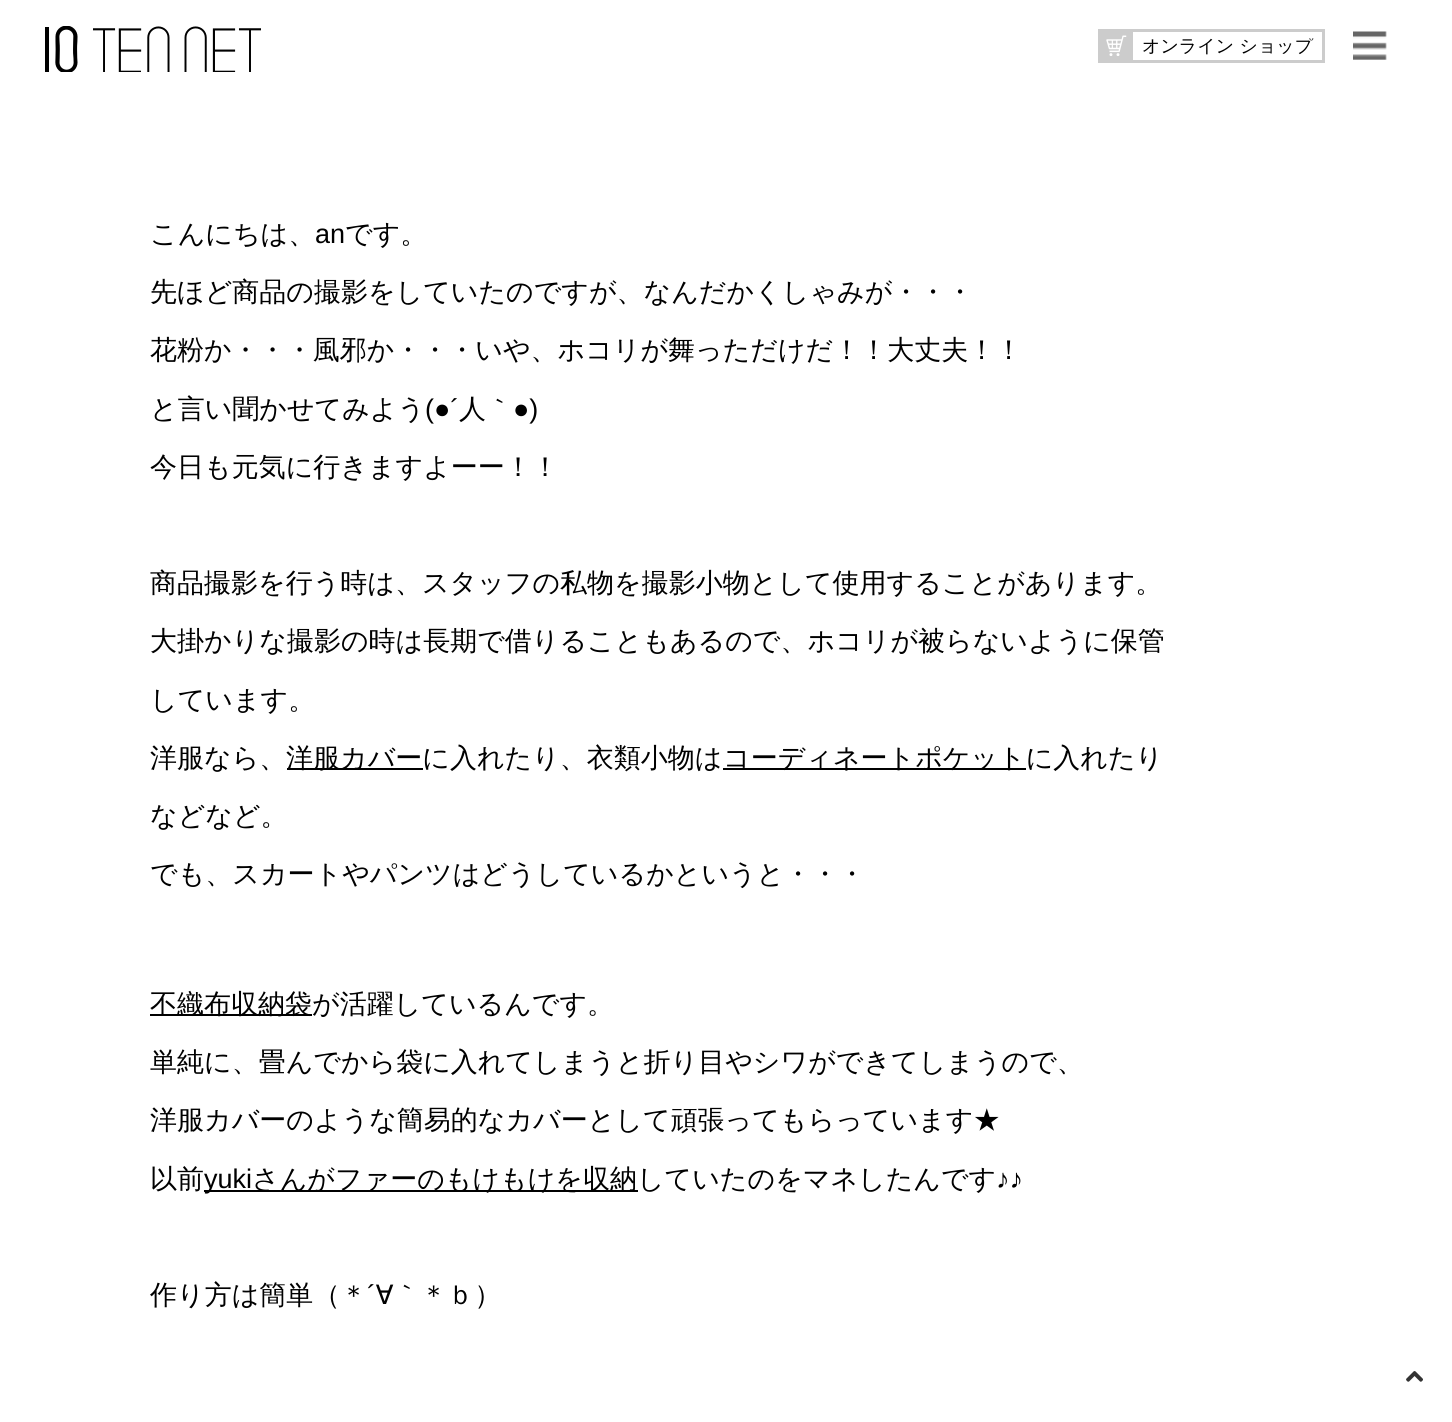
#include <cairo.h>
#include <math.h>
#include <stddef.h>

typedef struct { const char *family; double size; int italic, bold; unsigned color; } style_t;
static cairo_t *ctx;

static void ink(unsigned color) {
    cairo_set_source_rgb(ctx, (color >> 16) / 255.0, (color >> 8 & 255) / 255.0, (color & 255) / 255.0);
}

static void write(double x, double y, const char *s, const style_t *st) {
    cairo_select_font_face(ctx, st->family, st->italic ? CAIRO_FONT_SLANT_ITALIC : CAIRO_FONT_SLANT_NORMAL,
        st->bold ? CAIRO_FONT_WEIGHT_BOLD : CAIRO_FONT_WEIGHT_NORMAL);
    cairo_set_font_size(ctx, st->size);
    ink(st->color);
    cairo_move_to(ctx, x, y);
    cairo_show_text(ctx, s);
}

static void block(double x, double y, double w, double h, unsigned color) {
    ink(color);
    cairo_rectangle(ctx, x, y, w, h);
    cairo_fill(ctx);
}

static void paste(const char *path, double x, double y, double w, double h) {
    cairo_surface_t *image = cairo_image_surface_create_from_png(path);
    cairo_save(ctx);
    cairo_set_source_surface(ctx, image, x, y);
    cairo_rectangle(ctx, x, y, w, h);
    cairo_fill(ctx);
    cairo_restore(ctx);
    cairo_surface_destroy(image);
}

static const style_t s1 = {"WenQuanYi Zen Hei Medium", 18, 0, 0, 0x000000};
static const style_t s2 = {"WenQuanYi Zen Hei Medium", 27, 0, 0, 0x000000};
static const style_t s3 = {"Liberation Sans", 27, 0, 0, 0x000000};

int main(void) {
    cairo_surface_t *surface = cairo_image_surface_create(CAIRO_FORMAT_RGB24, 1452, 1422);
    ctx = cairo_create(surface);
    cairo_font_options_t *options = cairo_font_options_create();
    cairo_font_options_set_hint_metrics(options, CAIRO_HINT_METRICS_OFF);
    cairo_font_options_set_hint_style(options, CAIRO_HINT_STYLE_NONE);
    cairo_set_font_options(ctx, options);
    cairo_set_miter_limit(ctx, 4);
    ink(0xffffff);
    cairo_paint(ctx);
    paste("pic1.png", 45, 26, 216, 46);
    block(1101, 32, 29, 28, 0xcccccc);
    block(1130, 29, 195, 3, 0xcccccc);
    block(1322, 29, 3, 34, 0xcccccc);
    block(1130, 60, 195, 3, 0xcccccc);
    block(1130, 29, 3, 34, 0xcccccc);
    block(1098, 29, 35, 3, 0xcccccc);
    block(1098, 60, 35, 3, 0xcccccc);
    block(1098, 29, 3, 34, 0xcccccc);
    paste("pic2.png", 1106, 35, 21, 21);
    cairo_save(ctx);
    cairo_rectangle(ctx, 1133, 38, 189, 18);
    cairo_clip(ctx);
    write(1142, 52, "オンライン ショップ", &s1);
    cairo_restore(ctx);
    paste("pic3.png", 1353, 31, 34, 29);
    write(150, 243, "こんにちは、", &s2);
    write(315, 243, "an", &s3);
    write(345, 243, "です。", &s2);
    write(150, 301, "先ほど商品の撮影をしていたのですが、なんだかくしゃみが・・・", &s2);
    write(150, 359, "花粉か・・・風邪か・・・いや、ホコリが舞っただけだ！！大丈夫！！", &s2);
    write(150, 418, "と言い聞かせてみよう", &s2);
    write(425, 418, "(●´", &s3);
    write(459, 418, "人｀", &s2);
    write(513, 418, "●)", &s3);
    write(150, 476, "今日も元気に行きますよーー！！", &s2);
    write(150, 592, "商品撮影を行う時は、スタッフの私物を撮影小物として使用することがあります。", &s2);
    write(150, 650, "大掛かりな撮影の時は長期で借りることもあるので、ホコリが被らないように保管", &s2);
    write(150, 709, "しています。", &s2);
    write(150, 767, "洋服なら、", &s2);
    block(287, 768, 136, 2, 0x000000);
    write(286, 767, "洋服カバーに入れたり、衣類小物は", &s2);
    block(723, 768, 303, 2, 0x000000);
    write(723, 767, "コーディネートポケットに入れたり", &s2);
    write(150, 825, "などなど。", &s2);
    write(150, 883, "でも、スカートやパンツはどうしているかというと・・・", &s2);
    block(150, 1014, 162, 2, 0x000000);
    write(150, 1013, "不織布収納袋が活躍しているんです。", &s2);
    write(150, 1071, "単純に、畳んでから袋に入れてしまうと折り目やシワができてしまうので、", &s2);
    write(150, 1129, "洋服カバーのような簡易的なカバーとして頑張ってもらっています★", &s2);
    write(150, 1188, "以前", &s2);
    block(204, 1190, 434, 2, 0x000000);
    write(204, 1188, "yuki", &s3);
    write(252, 1188, "さんがファーのもけもけを収納していたのをマネしたんです", &s2);
    write(996, 1188, "♪♪", &s3);
    write(150, 1304, "作り方は簡単（＊", &s2);
    write(367, 1304, "´", &s3);
    write(376, 1304, "∀｀＊ｂ）", &s2);
    paste("pic4.png", 1406, 1371, 17, 11);
    cairo_surface_write_to_png(surface, "screenshot.png");
    cairo_font_options_destroy(options);
    cairo_destroy(ctx);
    cairo_surface_destroy(surface);
    return 0;
}
